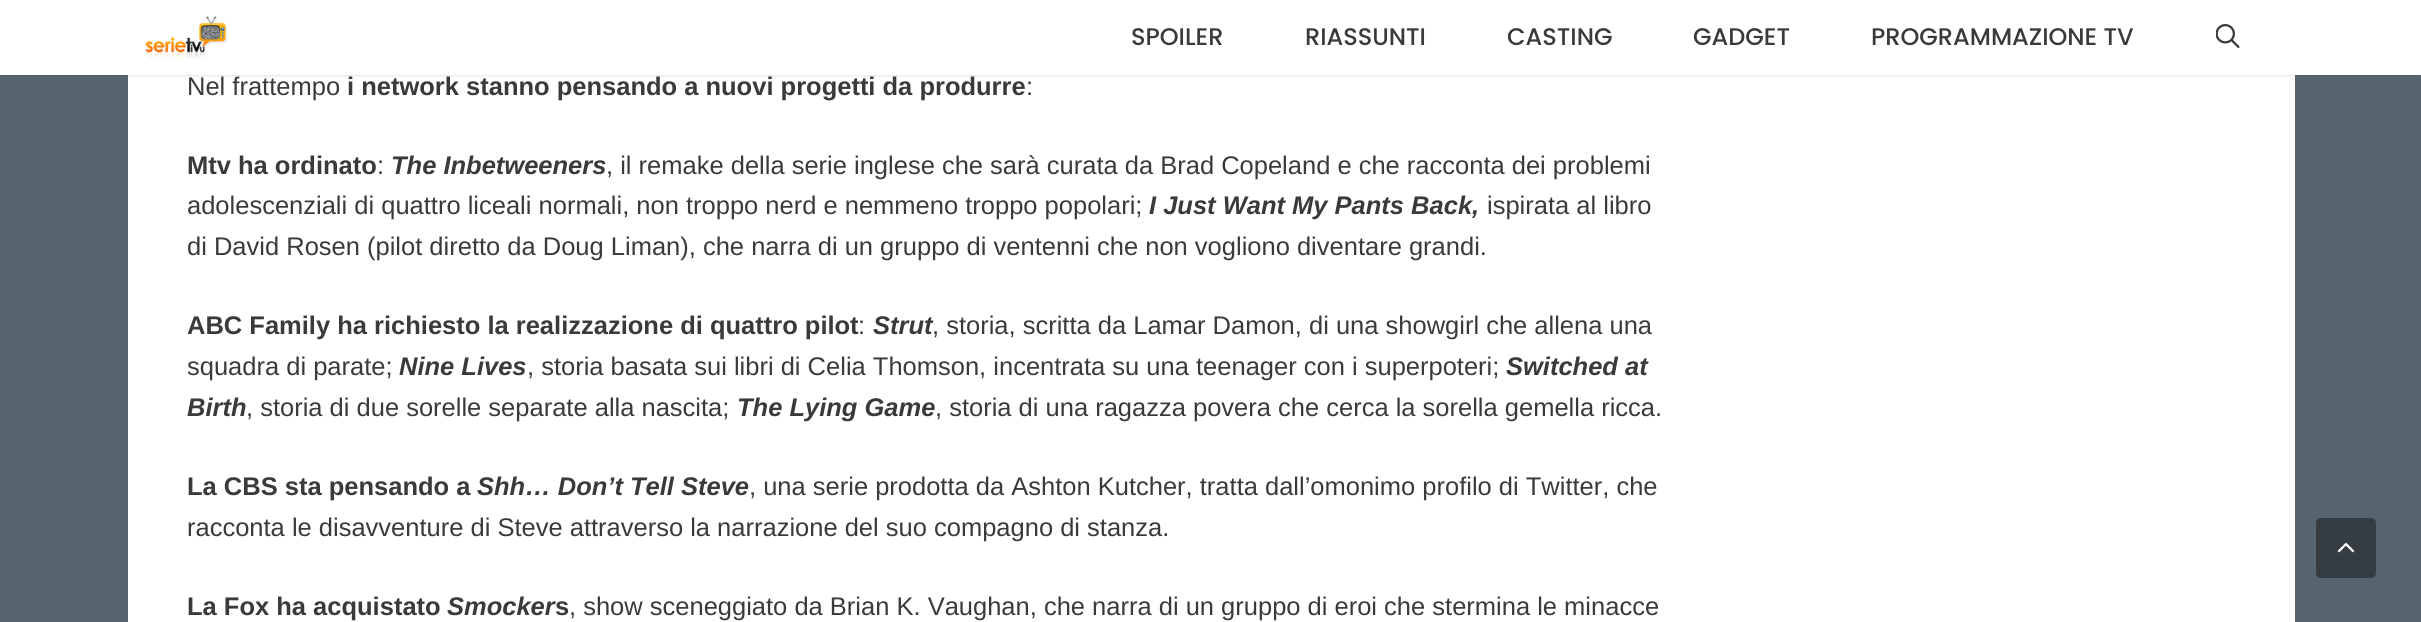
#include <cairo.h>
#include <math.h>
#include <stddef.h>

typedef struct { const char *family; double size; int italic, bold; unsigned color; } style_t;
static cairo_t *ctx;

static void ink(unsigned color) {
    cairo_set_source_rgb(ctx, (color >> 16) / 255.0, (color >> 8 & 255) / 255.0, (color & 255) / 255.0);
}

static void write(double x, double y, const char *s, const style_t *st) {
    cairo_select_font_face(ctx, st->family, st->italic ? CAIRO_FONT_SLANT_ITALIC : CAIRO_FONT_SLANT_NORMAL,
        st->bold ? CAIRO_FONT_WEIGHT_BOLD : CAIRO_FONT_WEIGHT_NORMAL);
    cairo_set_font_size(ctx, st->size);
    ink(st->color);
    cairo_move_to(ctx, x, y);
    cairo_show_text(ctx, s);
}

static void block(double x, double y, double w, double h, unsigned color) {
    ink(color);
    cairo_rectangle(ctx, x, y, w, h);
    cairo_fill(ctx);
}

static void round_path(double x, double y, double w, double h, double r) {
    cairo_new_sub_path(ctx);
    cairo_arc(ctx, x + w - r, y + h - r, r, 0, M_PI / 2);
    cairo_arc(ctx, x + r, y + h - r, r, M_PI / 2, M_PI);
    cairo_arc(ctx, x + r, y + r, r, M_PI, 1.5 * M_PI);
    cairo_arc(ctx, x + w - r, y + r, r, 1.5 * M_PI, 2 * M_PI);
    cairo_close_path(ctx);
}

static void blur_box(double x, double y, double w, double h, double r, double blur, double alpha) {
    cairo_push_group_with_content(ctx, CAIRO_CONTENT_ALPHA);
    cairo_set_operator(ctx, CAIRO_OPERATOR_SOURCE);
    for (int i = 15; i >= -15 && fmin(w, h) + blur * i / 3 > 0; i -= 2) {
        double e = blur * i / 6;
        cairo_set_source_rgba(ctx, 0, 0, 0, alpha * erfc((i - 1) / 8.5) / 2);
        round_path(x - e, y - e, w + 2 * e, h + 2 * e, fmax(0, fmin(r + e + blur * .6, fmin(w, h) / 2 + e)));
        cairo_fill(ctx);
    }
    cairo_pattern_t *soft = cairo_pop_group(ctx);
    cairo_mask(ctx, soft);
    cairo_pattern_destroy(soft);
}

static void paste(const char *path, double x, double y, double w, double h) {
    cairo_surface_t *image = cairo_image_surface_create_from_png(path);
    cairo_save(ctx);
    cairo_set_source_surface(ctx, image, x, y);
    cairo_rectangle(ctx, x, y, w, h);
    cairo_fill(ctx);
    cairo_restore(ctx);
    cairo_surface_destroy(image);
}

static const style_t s1 = {"Poppins Medium", 24, 0, 0, 0x3a3a3a};
static const style_t s2 = {"Liberation Sans", 25.5, 0, 0, 0x3a3a3a};
static const style_t s3 = {"Liberation Sans", 25.5, 0, 1, 0x3a3a3a};
static const style_t s4 = {"Liberation Sans", 25.5, 1, 1, 0x3a3a3a};

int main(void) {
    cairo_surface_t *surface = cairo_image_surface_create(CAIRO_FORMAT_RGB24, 2421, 622);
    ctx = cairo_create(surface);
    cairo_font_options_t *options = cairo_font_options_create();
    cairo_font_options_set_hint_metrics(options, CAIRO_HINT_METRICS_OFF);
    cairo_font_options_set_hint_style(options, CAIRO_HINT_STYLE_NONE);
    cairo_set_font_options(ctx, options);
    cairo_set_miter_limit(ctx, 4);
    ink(0x58656f);
    cairo_paint(ctx);
    block(128, 75, 2167, 547, 0xffffff);
    ink(0x000000);
    blur_box(3, 6, 2415, 69, 0, 1.5, 0.2);
    block(0, 0, 2421, 75, 0xffffff);
    paste("pic1.png", 145, 16, 83, 44);
    write(1131, 45, "SPOILER", &s1);
    write(1305, 45, "RIASSUNTI", &s1);
    write(1507, 45, "CASTING", &s1);
    write(1693, 45, "GADGET", &s1);
    write(1871, 45, "PROGRAMMAZIONE TV", &s1);
    paste("pic2.png", 2216, 24, 24, 24);
    write(187, 95, "Nel frattempo", &s2);
    write(347, 95, "i network stanno pensando a nuovi progetti da produrre", &s3);
    write(1026, 95, ":", &s2);
    write(187, 174, "Mtv ha ordinato", &s3);
    write(377, 174, ":", &s2);
    write(391, 174, "The Inbetweeners", &s4);
    write(606, 174, ", il remake della serie inglese che sarà curata da Brad Copeland e che racconta dei problemi", &s2);
    write(187, 214, "adolescenziali di quattro liceali normali, non troppo nerd e nemmeno troppo popolari;", &s2);
    write(1149, 214, "I Just Want My Pants Back,", &s4);
    write(1487, 214, "ispirata al libro", &s2);
    write(187, 255, "di David Rosen (pilot diretto da Doug Liman), che narra di un gruppo di ventenni che non vogliono diventare grandi.", &s2);
    write(187, 334, "ABC Family ha richiesto la realizzazione di quattro pilot", &s3);
    write(858, 334, ":", &s2);
    write(873, 334, "Strut", &s4);
    write(932, 334, ", storia, scritta da Lamar Damon, di una showgirl che allena una", &s2);
    write(187, 375, "squadra di parate;", &s2);
    write(399, 375, "Nine Lives", &s4);
    write(527, 375, ", storia basata sui libri di Celia Thomson, incentrata su una teenager con i superpoteri;", &s2);
    write(1506, 375, "Switched at", &s4);
    write(187, 416, "Birth", &s4);
    write(246, 416, ", storia di due sorelle separate alla nascita;", &s2);
    write(737, 416, "The Lying Game", &s4);
    write(935, 416, ", storia di una ragazza povera che cerca la sorella gemella ricca.", &s2);
    write(187, 495, "La CBS sta pensando a", &s3);
    write(477, 495, "Shh… Don’t Tell Steve", &s4);
    write(749, 495, ", una serie prodotta da Ashton Kutcher, tratta dall’omonimo profilo di Twitter, che", &s2);
    write(187, 536, "racconta le disavventure di Steve attraverso la narrazione del suo compagno di stanza.", &s2);
    write(187, 615, "La Fox ha acquistato", &s3);
    write(447, 615, "Smocker", &s4);
    write(555, 615, "s", &s3);
    write(569, 615, ", show sceneggiato da Brian K. Vaughan, che narra di un gruppo di eroi che stermina le minacce", &s2);
    ink(0x353d43);
    round_path(2316, 518, 60, 60, 5);
    cairo_fill(ctx);
    paste("pic3.png", 2337, 542, 18, 11);
    cairo_surface_write_to_png(surface, "screenshot.png");
    cairo_font_options_destroy(options);
    cairo_destroy(ctx);
    cairo_surface_destroy(surface);
    return 0;
}
